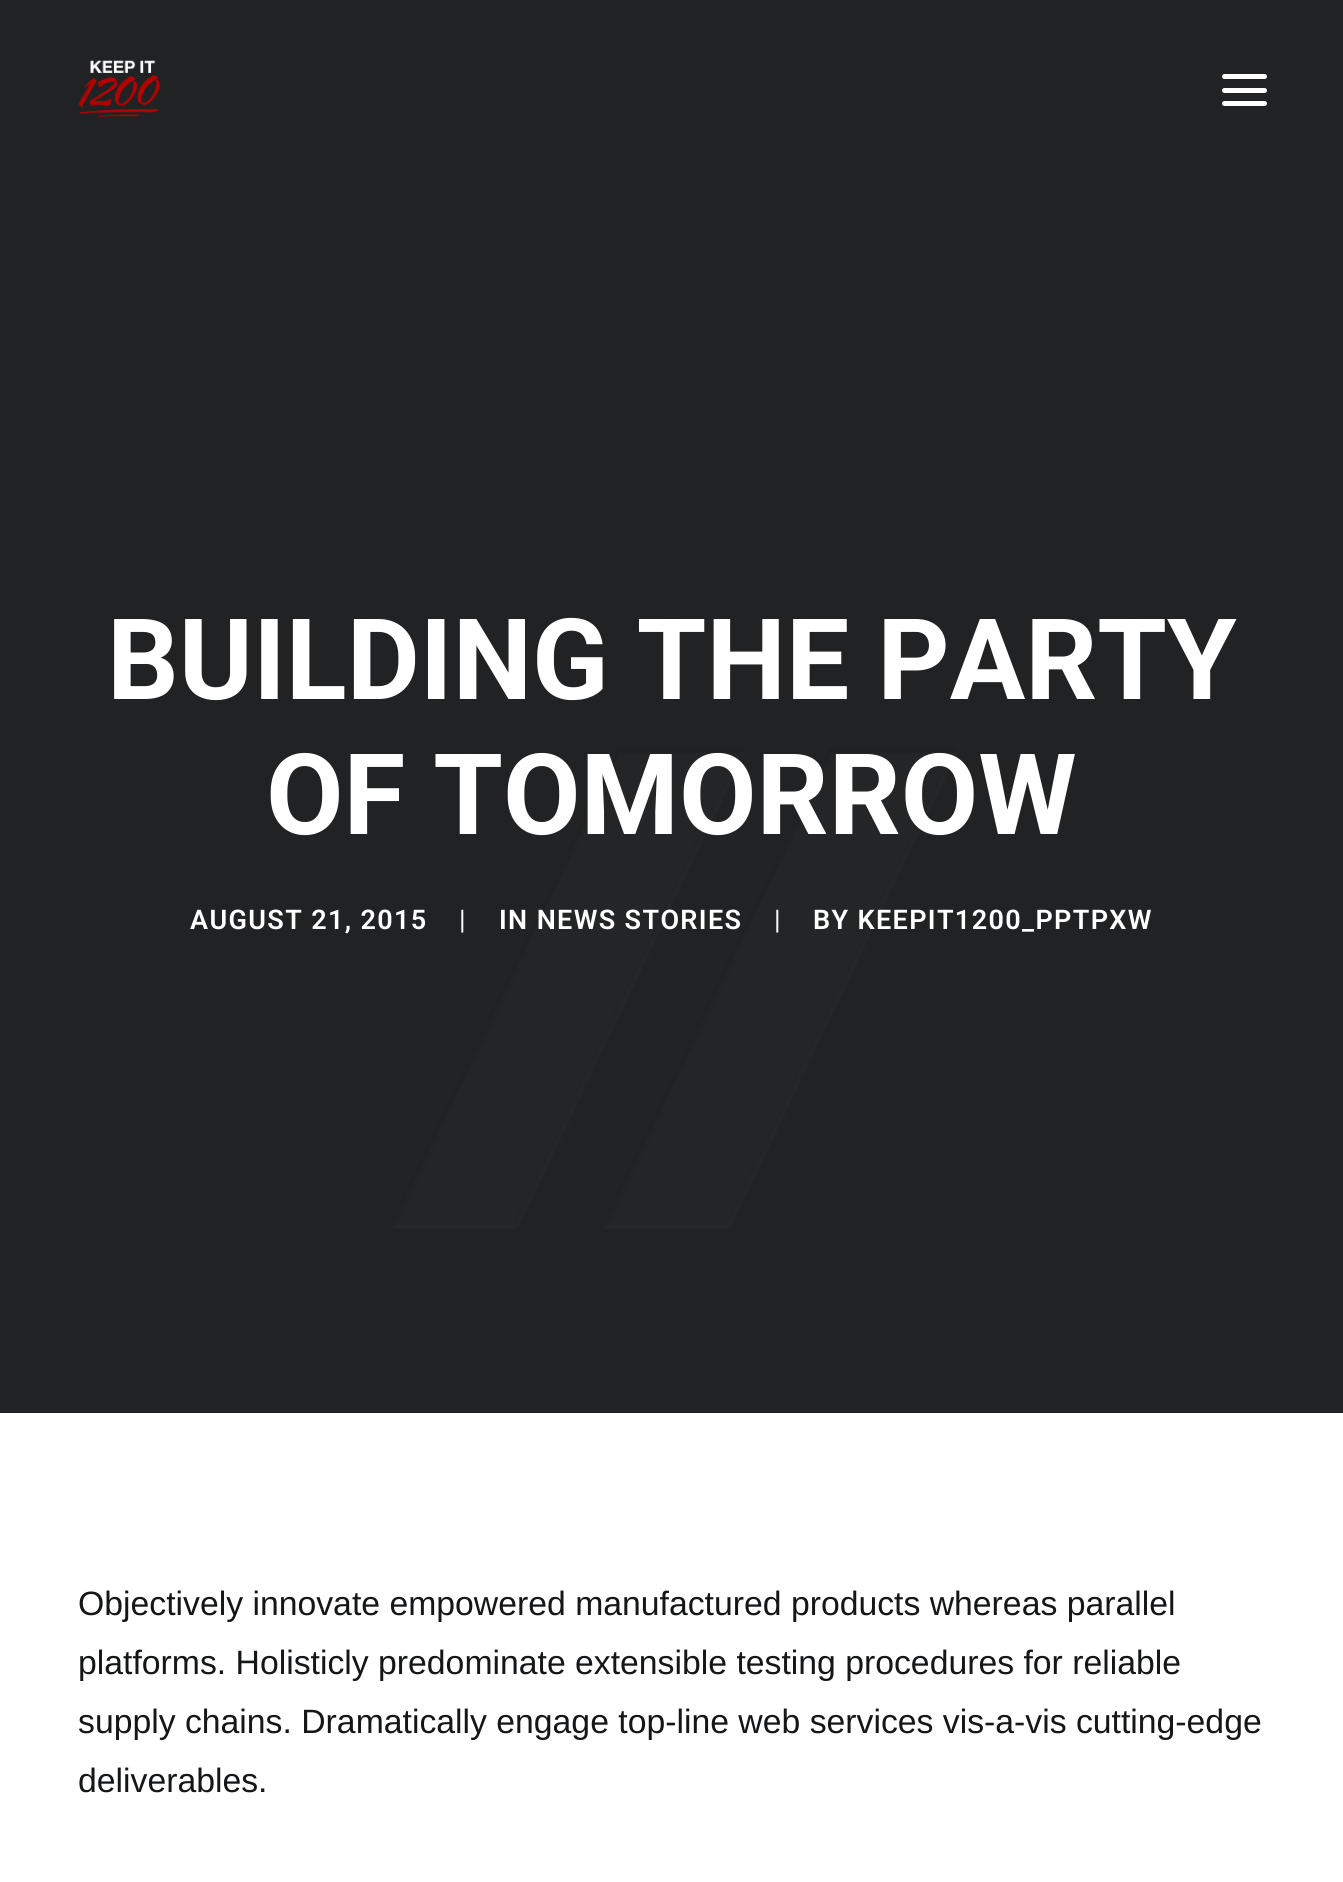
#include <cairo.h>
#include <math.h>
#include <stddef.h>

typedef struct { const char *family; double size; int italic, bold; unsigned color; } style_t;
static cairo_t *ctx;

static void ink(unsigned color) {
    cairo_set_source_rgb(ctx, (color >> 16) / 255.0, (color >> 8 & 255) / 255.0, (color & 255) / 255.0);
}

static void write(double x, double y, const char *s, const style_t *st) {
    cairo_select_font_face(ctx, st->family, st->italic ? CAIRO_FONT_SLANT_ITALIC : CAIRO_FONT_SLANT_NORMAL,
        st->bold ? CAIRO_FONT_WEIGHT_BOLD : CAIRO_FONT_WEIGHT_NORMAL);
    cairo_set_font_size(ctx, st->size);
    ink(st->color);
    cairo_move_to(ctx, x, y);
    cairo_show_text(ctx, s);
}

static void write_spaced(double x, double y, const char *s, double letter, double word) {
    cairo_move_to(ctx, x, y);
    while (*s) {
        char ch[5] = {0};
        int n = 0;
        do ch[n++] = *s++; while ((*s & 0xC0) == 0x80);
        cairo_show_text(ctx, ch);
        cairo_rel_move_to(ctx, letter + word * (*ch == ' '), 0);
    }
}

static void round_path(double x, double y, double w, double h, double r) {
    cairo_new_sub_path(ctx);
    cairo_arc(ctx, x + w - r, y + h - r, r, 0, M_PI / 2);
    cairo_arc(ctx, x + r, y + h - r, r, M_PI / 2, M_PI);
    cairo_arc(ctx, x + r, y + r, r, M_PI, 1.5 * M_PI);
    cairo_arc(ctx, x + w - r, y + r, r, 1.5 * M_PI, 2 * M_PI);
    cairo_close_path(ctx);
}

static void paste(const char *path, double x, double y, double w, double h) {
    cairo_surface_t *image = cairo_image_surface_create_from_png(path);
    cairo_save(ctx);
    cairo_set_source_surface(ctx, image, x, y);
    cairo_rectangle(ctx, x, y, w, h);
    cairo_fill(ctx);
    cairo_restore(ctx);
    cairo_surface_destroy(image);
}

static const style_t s1 = {"Roboto", 112.5, 0, 1, 0xffffff};
static const style_t s2 = {"Liberation Sans", 33.75, 0, 0, 0x141618};

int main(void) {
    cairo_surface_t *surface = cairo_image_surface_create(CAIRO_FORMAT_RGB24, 1343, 1882);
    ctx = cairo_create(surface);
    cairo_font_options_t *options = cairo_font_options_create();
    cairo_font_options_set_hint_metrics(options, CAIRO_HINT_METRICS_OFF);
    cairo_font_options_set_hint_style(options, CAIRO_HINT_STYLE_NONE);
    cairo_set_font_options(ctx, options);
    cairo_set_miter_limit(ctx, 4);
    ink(0xffffff);
    cairo_paint(ctx);
    paste("pic2.png", 0, 0, 1343, 1413);
    paste("pic1.png", 78, 60, 82, 57);
    ink(0xffffff);
    round_path(1222, 88, 45, 5, 2.5);
    cairo_fill(ctx);
    round_path(1222, 74, 45, 5, 2.5);
    cairo_fill(ctx);
    round_path(1222, 101, 45, 5, 2.5);
    cairo_fill(ctx);
    write(107, 699, "BUILDING THE PARTY", &s1);
    write(266, 834, "OF TOMORROW", &s1);
    cairo_select_font_face(ctx, "Roboto SemiBold", CAIRO_FONT_SLANT_NORMAL, CAIRO_FONT_WEIGHT_NORMAL);
    cairo_set_font_size(ctx, 27);
    write_spaced(190, 929, "AUGUST 21, 2015", 1.35, 0);
    cairo_select_font_face(ctx, "Roboto", CAIRO_FONT_SLANT_NORMAL, CAIRO_FONT_WEIGHT_NORMAL);
    write_spaced(459, 929, "|", 1.35, 0);
    cairo_select_font_face(ctx, "Roboto SemiBold", CAIRO_FONT_SLANT_NORMAL, CAIRO_FONT_WEIGHT_NORMAL);
    write_spaced(499, 929, "IN NEWS STORIES", 1.35, 0);
    cairo_select_font_face(ctx, "Roboto", CAIRO_FONT_SLANT_NORMAL, CAIRO_FONT_WEIGHT_NORMAL);
    write_spaced(774, 929, "|", 1.35, 0);
    cairo_select_font_face(ctx, "Roboto SemiBold", CAIRO_FONT_SLANT_NORMAL, CAIRO_FONT_WEIGHT_NORMAL);
    write_spaced(813, 929, "BY KEEPIT1200_PPTPXW", 1.35, 0);
    write(78, 1615, "Objectively innovate empowered manufactured products whereas parallel", &s2);
    write(78, 1674, "platforms. Holisticly predominate extensible testing procedures for reliable", &s2);
    write(78, 1733, "supply chains. Dramatically engage top-line web services vis-a-vis cutting-edge", &s2);
    write(78, 1792, "deliverables.", &s2);
    cairo_surface_write_to_png(surface, "screenshot.png");
    cairo_font_options_destroy(options);
    cairo_destroy(ctx);
    cairo_surface_destroy(surface);
    return 0;
}
